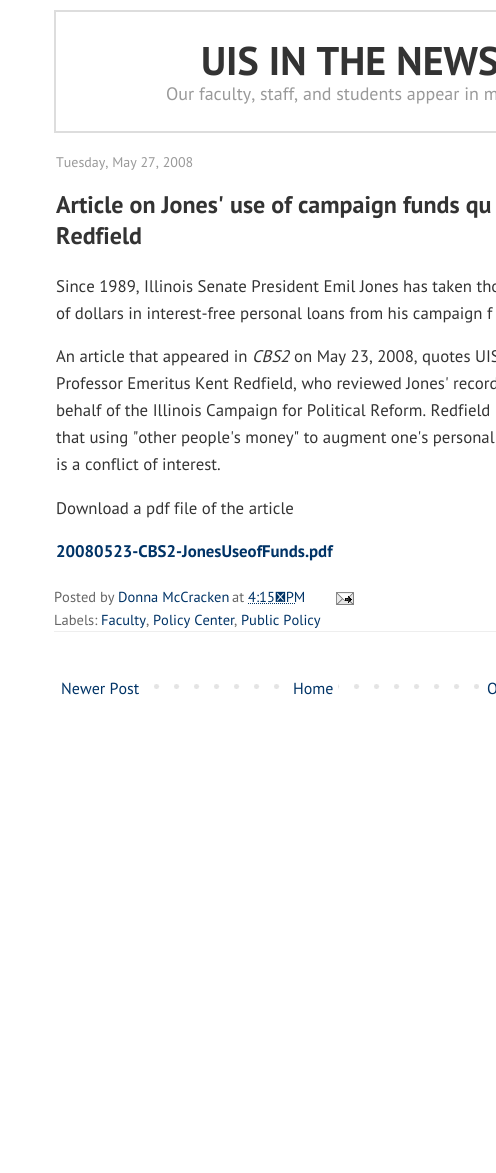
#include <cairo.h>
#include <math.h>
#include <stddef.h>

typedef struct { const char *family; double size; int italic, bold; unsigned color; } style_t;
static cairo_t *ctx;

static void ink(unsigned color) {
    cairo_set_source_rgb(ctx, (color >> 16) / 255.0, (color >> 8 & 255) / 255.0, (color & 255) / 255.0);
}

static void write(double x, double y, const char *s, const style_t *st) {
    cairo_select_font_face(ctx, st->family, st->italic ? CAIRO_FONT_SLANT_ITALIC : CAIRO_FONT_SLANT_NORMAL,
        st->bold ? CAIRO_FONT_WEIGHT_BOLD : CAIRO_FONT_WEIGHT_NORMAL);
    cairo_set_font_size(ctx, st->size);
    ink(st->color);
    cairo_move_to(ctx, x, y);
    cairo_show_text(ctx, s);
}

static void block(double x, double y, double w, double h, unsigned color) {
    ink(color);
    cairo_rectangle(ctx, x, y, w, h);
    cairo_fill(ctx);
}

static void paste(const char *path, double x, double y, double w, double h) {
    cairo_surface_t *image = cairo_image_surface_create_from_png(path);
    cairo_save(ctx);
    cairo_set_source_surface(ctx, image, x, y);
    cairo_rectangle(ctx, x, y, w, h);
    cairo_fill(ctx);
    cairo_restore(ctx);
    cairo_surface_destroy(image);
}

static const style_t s1 = {"PT Sans", 40, 0, 1, 0x333333};
static const style_t s2 = {"PT Sans", 18, 0, 0, 0x999999};
static const style_t s3 = {"PT Sans", 14, 0, 0, 0x999999};
static const style_t s4 = {"PT Sans", 24, 0, 1, 0x333333};
static const style_t s5 = {"PT Sans", 16.8, 0, 0, 0x333333};
static const style_t s6 = {"PT Sans", 16.8, 1, 0, 0x333333};
static const style_t s7 = {"PT Sans", 16.8, 0, 1, 0x003366};
static const style_t s8 = {"PT Sans", 14.5, 0, 0, 0x666666};
static const style_t s9 = {"PT Sans", 14.5, 0, 0, 0x003366};
static const style_t s10 = {"PT Sans", 16, 0, 0, 0x003366};

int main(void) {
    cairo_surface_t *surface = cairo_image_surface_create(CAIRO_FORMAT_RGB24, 496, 1173);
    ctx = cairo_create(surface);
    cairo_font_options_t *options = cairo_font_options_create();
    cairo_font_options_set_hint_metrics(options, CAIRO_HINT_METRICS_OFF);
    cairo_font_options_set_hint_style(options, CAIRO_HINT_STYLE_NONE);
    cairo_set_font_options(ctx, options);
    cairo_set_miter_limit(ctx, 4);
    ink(0xffffff);
    cairo_paint(ctx);
    cairo_rectangle(ctx, 55, 11, 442, 121);
    ink(0xdddddd);
    cairo_stroke(ctx);
    write(201, 75, "UIS IN THE NEWS", &s1);
    write(166, 100, "Our faculty, staff, and students appear in m", &s2);
    write(56, 167, "Tuesday, May 27, 2008", &s3);
    write(56, 213, "Article on Jones' use of campaign funds qu", &s4);
    write(56, 244, "Redfield", &s4);
    write(56, 292, "Since 1989, Illinois Senate President Emil Jones has taken tho", &s5);
    write(56, 319, "of dollars in interest-free personal loans from his campaign f", &s5);
    write(56, 362, "An article that appeared in", &s5);
    write(252, 362, "CBS2", &s6);
    write(294, 362, "on May 23, 2008, quotes UIS", &s5);
    write(56, 389, "Professor Emeritus Kent Redfield, who reviewed Jones' record", &s5);
    write(56, 416, "behalf of the Illinois Campaign for Political Reform. Redfield", &s5);
    write(56, 443, "that using \"other people's money\" to augment one's personal", &s5);
    write(56, 470, "is a conflict of interest.", &s5);
    write(56, 514, "Download a pdf file of the article", &s5);
    write(56, 557, "20080523-CBS2-JonesUseofFunds.pdf", &s7);
    block(54, 631, 442, 1, 0xeeeeee);
    write(54, 602, "Posted by", &s8);
    write(118, 602, "Donna McCracken", &s9);
    write(232, 602, "at", &s8);
    write(248, 602, "4:15 PM", &s9);
    cairo_new_path(ctx);
    cairo_move_to(ctx, 248, 603.5);
    cairo_line_to(ctx, 296, 603.5);
    cairo_set_line_width(ctx, 1);
    cairo_set_dash(ctx, (double[]){1, 1}, 2, 0);
    cairo_stroke(ctx);
    paste("pic1.png", 336, 592, 18, 13);
    write(54, 625, "Labels:", &s8);
    write(101, 625, "Faculty", &s9);
    write(146, 625, ",", &s8);
    write(153, 625, "Policy Center", &s9);
    write(234, 625, ",", &s8);
    write(241, 625, "Public Policy", &s9);
    paste("pic2.png", 154, 684, 325, 5);
    write(61, 694, "Newer Post", &s10);
    block(294, 684, 44, 5, 0xffffff);
    write(293, 694, "Home", &s10);
    write(487, 694, "O", &s10);
    cairo_surface_write_to_png(surface, "screenshot.png");
    cairo_font_options_destroy(options);
    cairo_destroy(ctx);
    cairo_surface_destroy(surface);
    return 0;
}
